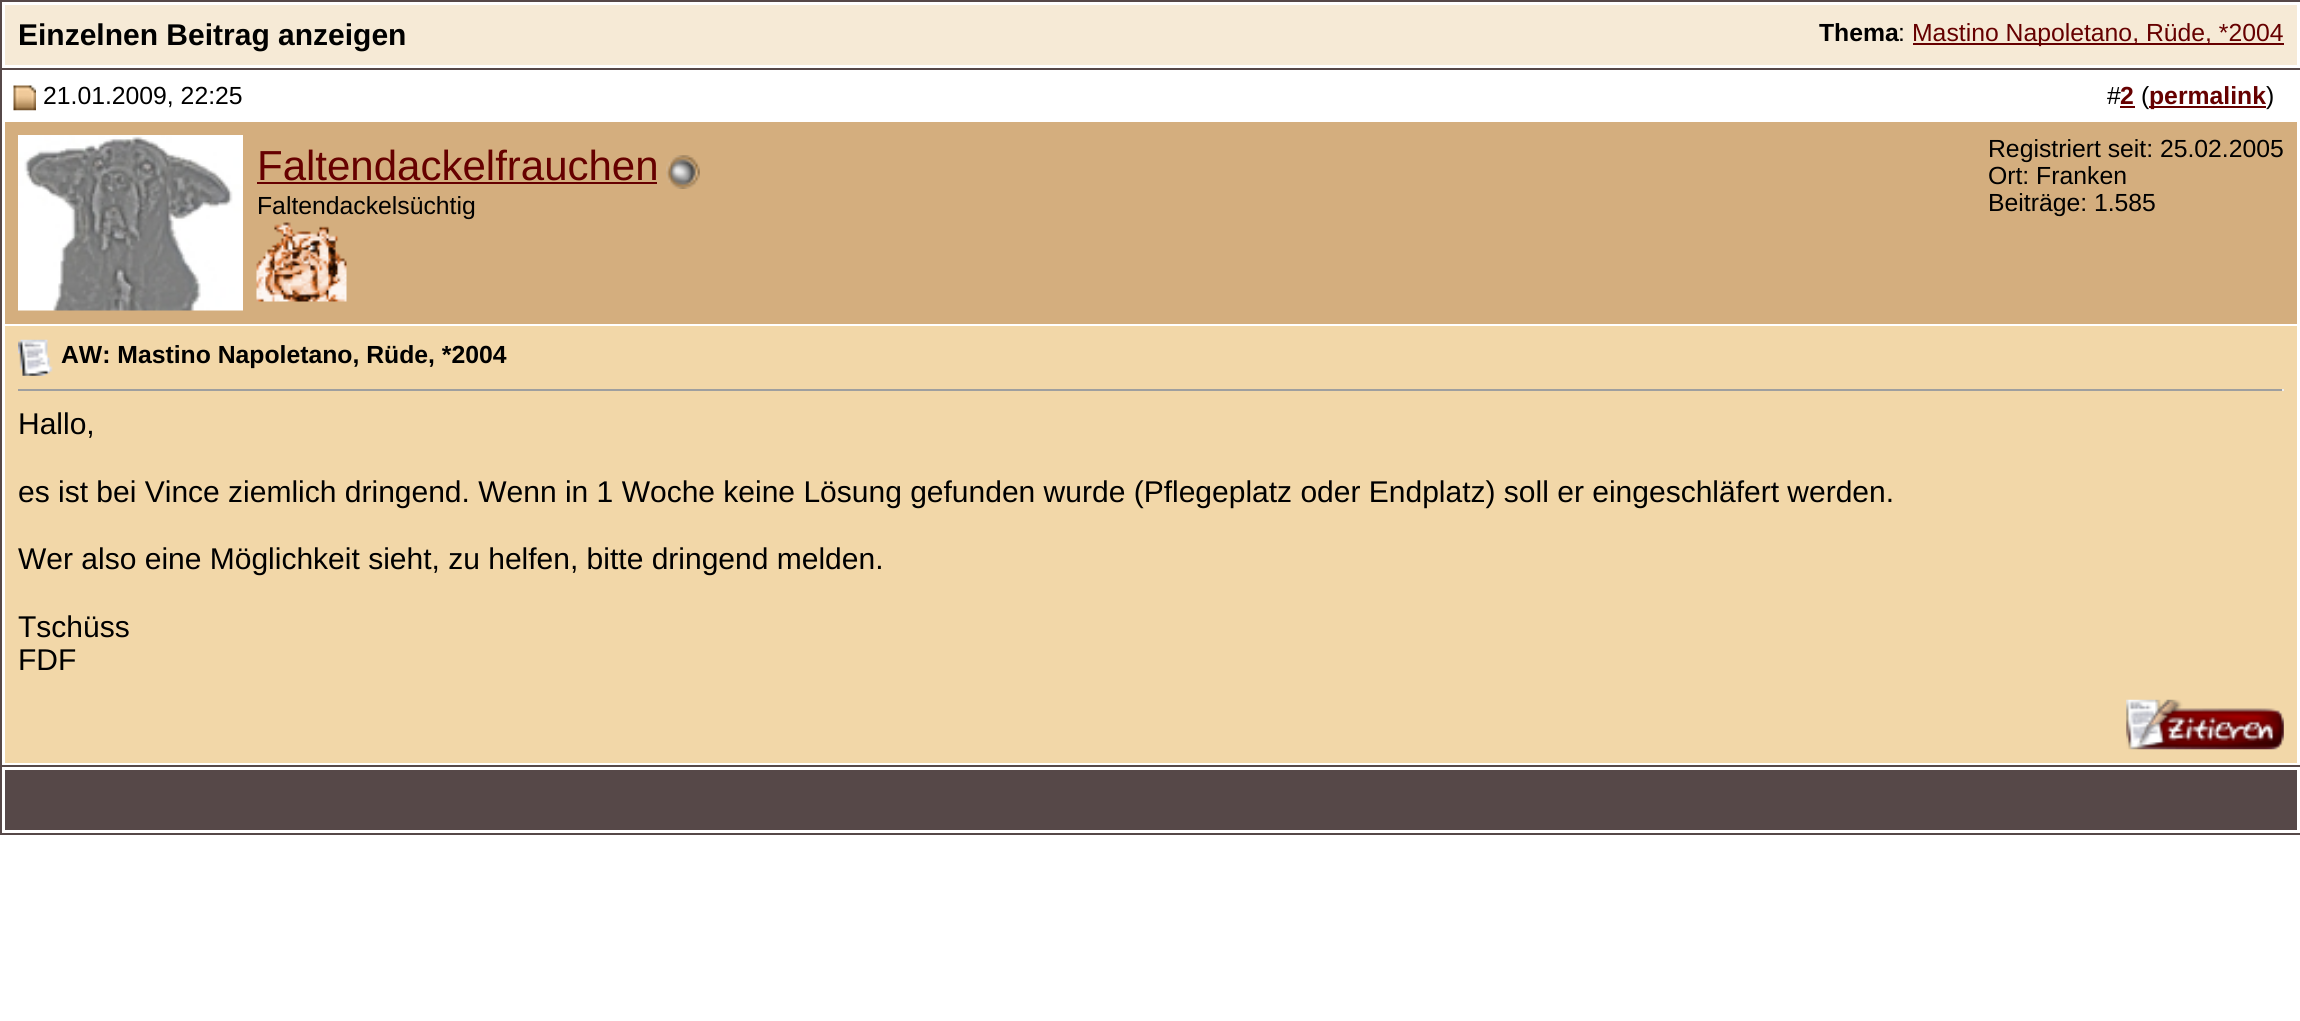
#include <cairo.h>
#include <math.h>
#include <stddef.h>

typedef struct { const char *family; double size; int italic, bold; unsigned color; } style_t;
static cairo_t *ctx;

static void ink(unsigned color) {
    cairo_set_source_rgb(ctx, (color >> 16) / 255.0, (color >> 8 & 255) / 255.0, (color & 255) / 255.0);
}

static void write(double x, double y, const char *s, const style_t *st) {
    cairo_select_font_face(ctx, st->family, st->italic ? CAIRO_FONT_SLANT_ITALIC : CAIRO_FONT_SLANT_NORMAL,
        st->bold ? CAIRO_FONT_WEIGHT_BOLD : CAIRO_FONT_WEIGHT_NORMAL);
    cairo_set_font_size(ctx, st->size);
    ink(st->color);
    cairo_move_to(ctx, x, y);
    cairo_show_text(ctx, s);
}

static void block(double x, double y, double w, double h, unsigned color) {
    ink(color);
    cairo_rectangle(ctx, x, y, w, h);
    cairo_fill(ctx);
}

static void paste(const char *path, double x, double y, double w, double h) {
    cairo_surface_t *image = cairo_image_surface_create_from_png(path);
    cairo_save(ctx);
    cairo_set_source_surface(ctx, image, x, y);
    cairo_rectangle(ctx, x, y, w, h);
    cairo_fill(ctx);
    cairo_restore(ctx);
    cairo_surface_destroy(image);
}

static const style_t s1 = {"Liberation Sans", 30, 0, 1, 0x000000};
static const style_t s2 = {"Liberation Sans", 24.75, 0, 1, 0x000000};
static const style_t s3 = {"Liberation Sans", 24.75, 0, 0, 0x000000};
static const style_t s4 = {"Liberation Sans", 24.75, 0, 0, 0x660000};
static const style_t s5 = {"Liberation Sans", 24.75, 0, 1, 0x660000};
static const style_t s6 = {"Liberation Sans", 42, 0, 0, 0x660000};
static const style_t s7 = {"Liberation Sans", 30, 0, 0, 0x000000};

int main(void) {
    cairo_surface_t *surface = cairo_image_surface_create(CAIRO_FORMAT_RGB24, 2300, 1021);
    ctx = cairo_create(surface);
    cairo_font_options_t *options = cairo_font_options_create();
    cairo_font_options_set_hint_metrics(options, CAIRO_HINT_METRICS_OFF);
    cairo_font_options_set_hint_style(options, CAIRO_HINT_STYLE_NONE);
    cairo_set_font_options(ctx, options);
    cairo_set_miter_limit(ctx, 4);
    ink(0xffffff);
    cairo_paint(ctx);
    block(0, 0, 2300, 2, 0x564848);
    block(0, 0, 2, 68, 0x564848);
    block(5, 5, 2292, 60, 0xf6ead6);
    write(18, 45, "Einzelnen Beitrag anzeigen", &s1);
    write(1819, 41, "Thema", &s2);
    write(1898, 41, ":", &s3);
    block(1913, 43, 371, 2, 0x660000);
    write(1912, 41, "Mastino Napoletano, Rüde, *2004", &s4);
    cairo_rectangle(ctx, 1, 69, 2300, 697);
    ink(0x564848);
    cairo_stroke(ctx);
    paste("pic1.png", 13, 85, 23, 26);
    write(43, 104, "21.01.2009, 22:25", &s3);
    write(2107, 104, "#", &s3);
    write(2120, 104, "2", &s5);
    block(2120, 106, 15, 2, 0x660000);
    write(2141, 104, "(", &s3);
    block(2149, 106, 117, 2, 0x660000);
    write(2149, 104, "permalink", &s5);
    write(2266, 104, ")", &s3);
    block(5, 122, 2292, 202, 0xd4ae7e);
    paste("pic2.png", 18, 135, 225, 176);
    write(257, 180, "Faltendackelfrauchen", &s6);
    block(257, 182, 400, 2, 0x660000);
    paste("pic3.png", 666, 155, 34, 34);
    write(257, 214, "Faltendackelsüchtig", &s3);
    paste("pic4.png", 256, 222, 91, 80);
    write(1988, 157, "Registriert seit: 25.02.2005", &s3);
    write(1988, 184, "Ort: Franken", &s3);
    write(1988, 211, "Beiträge: 1.585", &s3);
    block(5, 326, 2292, 437, 0xf2d7a8);
    paste("pic5.png", 18, 339, 35, 37);
    write(61, 363, "AW: Mastino Napoletano, Rüde, *2004", &s2);
    block(18, 389, 2266, 2, 0x9f9f9f);
    block(2282, 389, 2, 2, 0xeeeeee);
    write(18, 434, "Hallo,", &s7);
    write(18, 502, "es ist bei Vince ziemlich dringend. Wenn in 1 Woche keine Lösung gefunden wurde (Pflegeplatz oder Endplatz) soll er eingeschläfert werden.", &s7);
    write(18, 569, "Wer also eine Möglichkeit sieht, zu helfen, bitte dringend melden.", &s7);
    write(18, 637, "Tschüss", &s7);
    write(18, 670, "FDF", &s7);
    paste("pic6.png", 2126, 699, 158, 51);
    block(0, 833, 2300, 2, 0x564848);
    block(0, 767, 2, 68, 0x564848);
    block(5, 770, 2292, 60, 0x564848);
    cairo_surface_write_to_png(surface, "screenshot.png");
    cairo_font_options_destroy(options);
    cairo_destroy(ctx);
    cairo_surface_destroy(surface);
    return 0;
}
